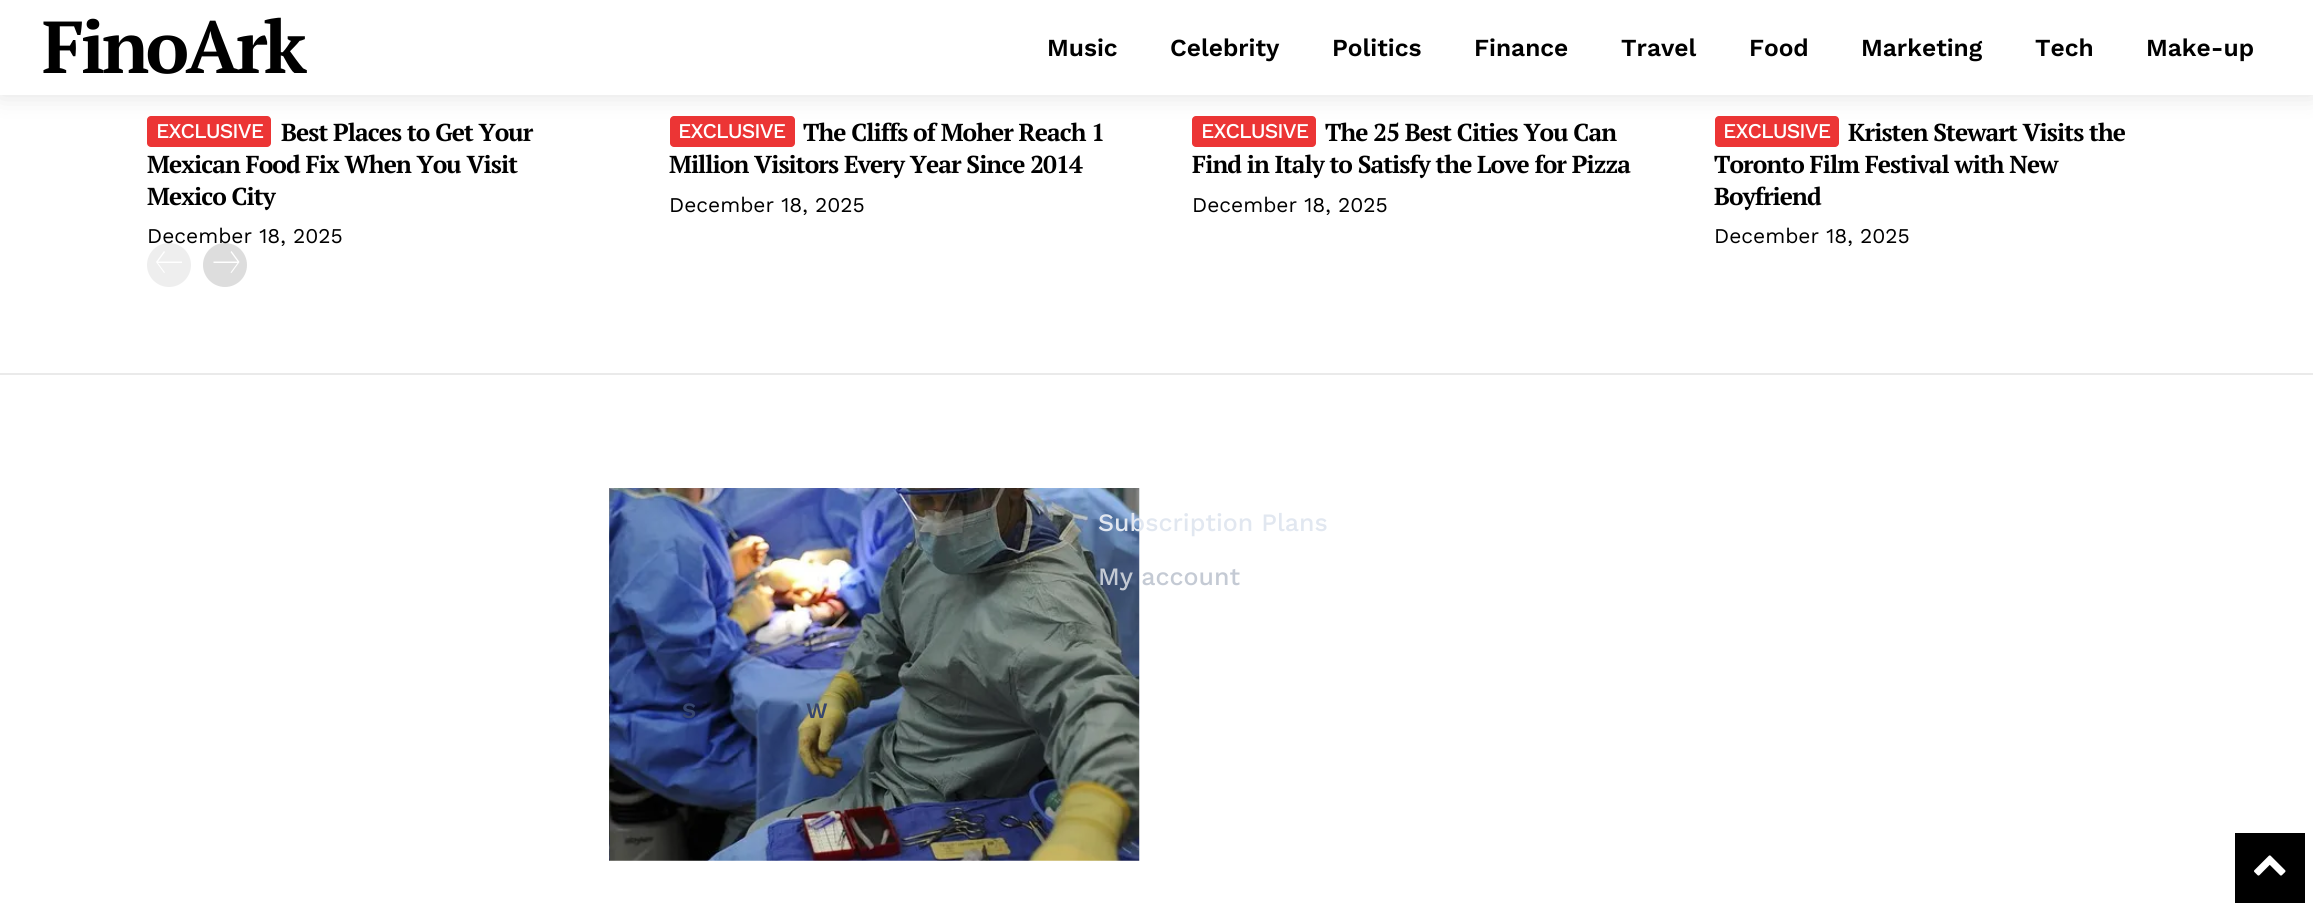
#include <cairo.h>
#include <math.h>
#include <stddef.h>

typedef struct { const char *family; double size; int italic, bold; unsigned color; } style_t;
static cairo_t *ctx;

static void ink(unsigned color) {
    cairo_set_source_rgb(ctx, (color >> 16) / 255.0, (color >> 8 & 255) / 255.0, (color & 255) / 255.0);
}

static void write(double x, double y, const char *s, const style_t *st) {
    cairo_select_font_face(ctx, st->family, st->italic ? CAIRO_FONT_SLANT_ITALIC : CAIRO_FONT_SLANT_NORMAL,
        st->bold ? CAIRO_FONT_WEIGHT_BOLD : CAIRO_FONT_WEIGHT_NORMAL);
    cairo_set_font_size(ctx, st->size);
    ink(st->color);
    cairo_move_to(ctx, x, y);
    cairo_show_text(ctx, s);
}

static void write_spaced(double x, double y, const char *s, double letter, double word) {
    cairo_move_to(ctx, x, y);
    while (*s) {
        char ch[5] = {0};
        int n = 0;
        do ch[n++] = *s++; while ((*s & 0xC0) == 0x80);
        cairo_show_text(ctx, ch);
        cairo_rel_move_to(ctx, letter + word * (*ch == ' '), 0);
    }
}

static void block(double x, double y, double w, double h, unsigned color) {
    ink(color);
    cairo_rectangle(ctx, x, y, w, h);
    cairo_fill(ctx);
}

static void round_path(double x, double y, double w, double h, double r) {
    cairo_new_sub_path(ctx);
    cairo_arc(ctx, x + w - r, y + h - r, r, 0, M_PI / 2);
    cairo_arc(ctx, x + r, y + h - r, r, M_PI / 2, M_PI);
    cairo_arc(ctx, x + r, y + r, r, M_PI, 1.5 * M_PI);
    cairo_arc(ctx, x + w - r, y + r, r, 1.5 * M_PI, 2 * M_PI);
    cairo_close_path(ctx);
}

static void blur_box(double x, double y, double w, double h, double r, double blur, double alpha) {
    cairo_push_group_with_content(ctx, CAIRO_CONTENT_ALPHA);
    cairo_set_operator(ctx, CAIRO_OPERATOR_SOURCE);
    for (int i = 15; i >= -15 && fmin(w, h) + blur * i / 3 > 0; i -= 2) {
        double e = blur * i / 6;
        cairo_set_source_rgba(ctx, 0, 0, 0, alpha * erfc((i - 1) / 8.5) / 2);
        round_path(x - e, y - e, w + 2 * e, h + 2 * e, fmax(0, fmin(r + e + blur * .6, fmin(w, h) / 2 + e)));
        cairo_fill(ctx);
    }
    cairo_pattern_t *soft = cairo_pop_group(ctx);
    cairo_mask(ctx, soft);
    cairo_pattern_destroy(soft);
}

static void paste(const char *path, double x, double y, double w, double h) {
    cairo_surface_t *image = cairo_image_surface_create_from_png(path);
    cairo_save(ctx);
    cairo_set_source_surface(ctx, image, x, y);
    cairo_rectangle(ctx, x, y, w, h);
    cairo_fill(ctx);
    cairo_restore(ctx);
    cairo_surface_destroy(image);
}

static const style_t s1 = {"Work Sans SemiBold", 24.5, 0, 0, 0x000000};
static const style_t s2 = {"Work Sans", 21, 0, 0, 0x000000};
static const style_t s3 = {"Work Sans Medium", 25, 0, 0, 0xe1e7f0};
static const style_t s4 = {"Work Sans Medium", 25, 0, 0, 0xc4cad4};

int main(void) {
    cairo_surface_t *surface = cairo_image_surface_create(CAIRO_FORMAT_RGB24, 2313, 909);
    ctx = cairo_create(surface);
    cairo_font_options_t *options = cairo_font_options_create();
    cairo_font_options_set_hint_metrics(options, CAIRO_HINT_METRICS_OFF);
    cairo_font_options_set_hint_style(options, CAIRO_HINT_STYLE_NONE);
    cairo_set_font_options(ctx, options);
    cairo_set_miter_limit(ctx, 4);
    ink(0xffffff);
    cairo_paint(ctx);
    ink(0xec3535);
    round_path(147, 116, 124, 31, 4);
    cairo_fill(ctx);
    round_path(670, 116, 125, 31, 4);
    cairo_fill(ctx);
    round_path(1192, 116, 124, 31, 4);
    cairo_fill(ctx);
    round_path(1715, 116, 124, 31, 4);
    cairo_fill(ctx);
    cairo_save(ctx);
    cairo_set_fill_rule(ctx, CAIRO_FILL_RULE_EVEN_ODD);
    cairo_new_path(ctx);
    cairo_move_to(ctx, 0, 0);
    cairo_line_to(ctx, 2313, 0);
    cairo_line_to(ctx, 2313, 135);
    cairo_line_to(ctx, 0, 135);
    cairo_close_path(ctx);
    cairo_move_to(ctx, 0, 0);
    cairo_line_to(ctx, 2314, 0);
    cairo_line_to(ctx, 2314, 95);
    cairo_line_to(ctx, 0, 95);
    cairo_close_path(ctx);
    cairo_clip(ctx);
    ink(0x000000);
    blur_box(0, 0, 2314, 95, 0, 13, 0.12);
    cairo_restore(ctx);
    cairo_select_font_face(ctx, "PT Serif", CAIRO_FONT_SLANT_NORMAL, CAIRO_FONT_WEIGHT_BOLD);
    cairo_set_font_size(ctx, 73.5);
    ink(0x000000);
    write_spaced(42, 73, "FinoArk", -3.5, 0);
    write(1047, 56, "Music", &s1);
    write(1170, 56, "Celebrity", &s1);
    write(1332, 56, "Politics", &s1);
    write(1474, 56, "Finance", &s1);
    write(1621, 56, "Travel", &s1);
    write(1749, 56, "Food", &s1);
    write(1861, 56, "Marketing", &s1);
    write(2035, 56, "Tech", &s1);
    write(2146, 56, "Make-up", &s1);
    cairo_select_font_face(ctx, "Work Sans Medium", CAIRO_FONT_SLANT_NORMAL, CAIRO_FONT_WEIGHT_NORMAL);
    cairo_set_font_size(ctx, 21);
    ink(0xffffff);
    write_spaced(156, 138, "EXCLUSIVE", -0.9, 0);
    cairo_select_font_face(ctx, "PT Serif", CAIRO_FONT_SLANT_NORMAL, CAIRO_FONT_WEIGHT_BOLD);
    cairo_set_font_size(ctx, 24.5);
    ink(0x000000);
    write_spaced(281, 141, "Best Places to Get Your", -0.9, 0);
    write_spaced(147, 173, "Mexican Food Fix When You Visit", -0.9, 0);
    write_spaced(147, 205, "Mexico City", -0.9, 0);
    ink(0xeeeeee);
    cairo_new_path(ctx);
    cairo_arc(ctx, 169, 265, 22, 0, 2 * M_PI);
    cairo_fill(ctx);
    ink(0xdddddd);
    cairo_arc(ctx, 225, 265, 22, 0, 2 * M_PI);
    cairo_fill(ctx);
    write(147, 243, "December 18, 2025", &s2);
    cairo_select_font_face(ctx, "Work Sans Medium", CAIRO_FONT_SLANT_NORMAL, CAIRO_FONT_WEIGHT_NORMAL);
    ink(0xffffff);
    write_spaced(678, 138, "EXCLUSIVE", -0.9, 0);
    cairo_select_font_face(ctx, "PT Serif", CAIRO_FONT_SLANT_NORMAL, CAIRO_FONT_WEIGHT_BOLD);
    cairo_set_font_size(ctx, 24.5);
    ink(0x000000);
    write_spaced(803, 141, "The Cliffs of Moher Reach 1", -0.9, 0);
    write_spaced(669, 173, "Million Visitors Every Year Since 2014", -0.9, 0);
    write(669, 212, "December 18, 2025", &s2);
    cairo_select_font_face(ctx, "Work Sans Medium", CAIRO_FONT_SLANT_NORMAL, CAIRO_FONT_WEIGHT_NORMAL);
    ink(0xffffff);
    write_spaced(1201, 138, "EXCLUSIVE", -0.9, 0);
    cairo_select_font_face(ctx, "PT Serif", CAIRO_FONT_SLANT_NORMAL, CAIRO_FONT_WEIGHT_BOLD);
    cairo_set_font_size(ctx, 24.5);
    ink(0x000000);
    write_spaced(1325, 141, "The 25 Best Cities You Can", -0.9, 0);
    write_spaced(1192, 173, "Find in Italy to Satisfy the Love for Pizza", -0.9, 0);
    write(1192, 212, "December 18, 2025", &s2);
    cairo_select_font_face(ctx, "Work Sans Medium", CAIRO_FONT_SLANT_NORMAL, CAIRO_FONT_WEIGHT_NORMAL);
    ink(0xffffff);
    write_spaced(1723, 138, "EXCLUSIVE", -0.9, 0);
    cairo_select_font_face(ctx, "PT Serif", CAIRO_FONT_SLANT_NORMAL, CAIRO_FONT_WEIGHT_BOLD);
    cairo_set_font_size(ctx, 24.5);
    ink(0x000000);
    write_spaced(1848, 141, "Kristen Stewart Visits the", -0.9, 0);
    write_spaced(1714, 173, "Toronto Film Festival with New", -0.9, 0);
    write_spaced(1714, 205, "Boyfriend", -0.9, 0);
    write(1714, 243, "December 18, 2025", &s2);
    ink(0xffffff);
    cairo_new_path(ctx);
    cairo_move_to(ctx, 165, 272.5);
    cairo_line_to(ctx, 158, 263);
    cairo_line_to(ctx, 182, 263);
    cairo_line_to(ctx, 182, 261.5);
    cairo_line_to(ctx, 158, 261.5);
    cairo_line_to(ctx, 165, 252);
    cairo_line_to(ctx, 164, 251);
    cairo_line_to(ctx, 156, 262);
    cairo_line_to(ctx, 164, 273);
    cairo_close_path(ctx);
    cairo_fill(ctx);
    cairo_new_path(ctx);
    cairo_move_to(ctx, 230.5, 272.5);
    cairo_line_to(ctx, 231.5, 273);
    cairo_line_to(ctx, 239.5, 262);
    cairo_line_to(ctx, 231.5, 251);
    cairo_line_to(ctx, 230.5, 252);
    cairo_line_to(ctx, 237.5, 261.5);
    cairo_line_to(ctx, 213.5, 261.5);
    cairo_line_to(ctx, 213.5, 263);
    cairo_line_to(ctx, 237.5, 263);
    cairo_close_path(ctx);
    cairo_fill(ctx);
    block(0, 373, 2313, 2, 0xeaeaea);
    paste("pic1.png", 609, 488, 531, 373);
    write(1098, 531, "Subscription Plans", &s3);
    write(1098, 585, "My account", &s4);
    cairo_select_font_face(ctx, "Work Sans SemiBold", CAIRO_FONT_SLANT_NORMAL, CAIRO_FONT_WEIGHT_NORMAL);
    cairo_set_font_size(ctx, 22);
    ink(0x37466e);
    write_spaced(682, 718, "S", 1, 0);
    write_spaced(806, 718, "W", 1, 0);
    block(2235, 833, 70, 70, 0x000000);
    paste("pic2.png", 2254, 855, 32, 21);
    cairo_surface_write_to_png(surface, "screenshot.png");
    cairo_font_options_destroy(options);
    cairo_destroy(ctx);
    cairo_surface_destroy(surface);
    return 0;
}
